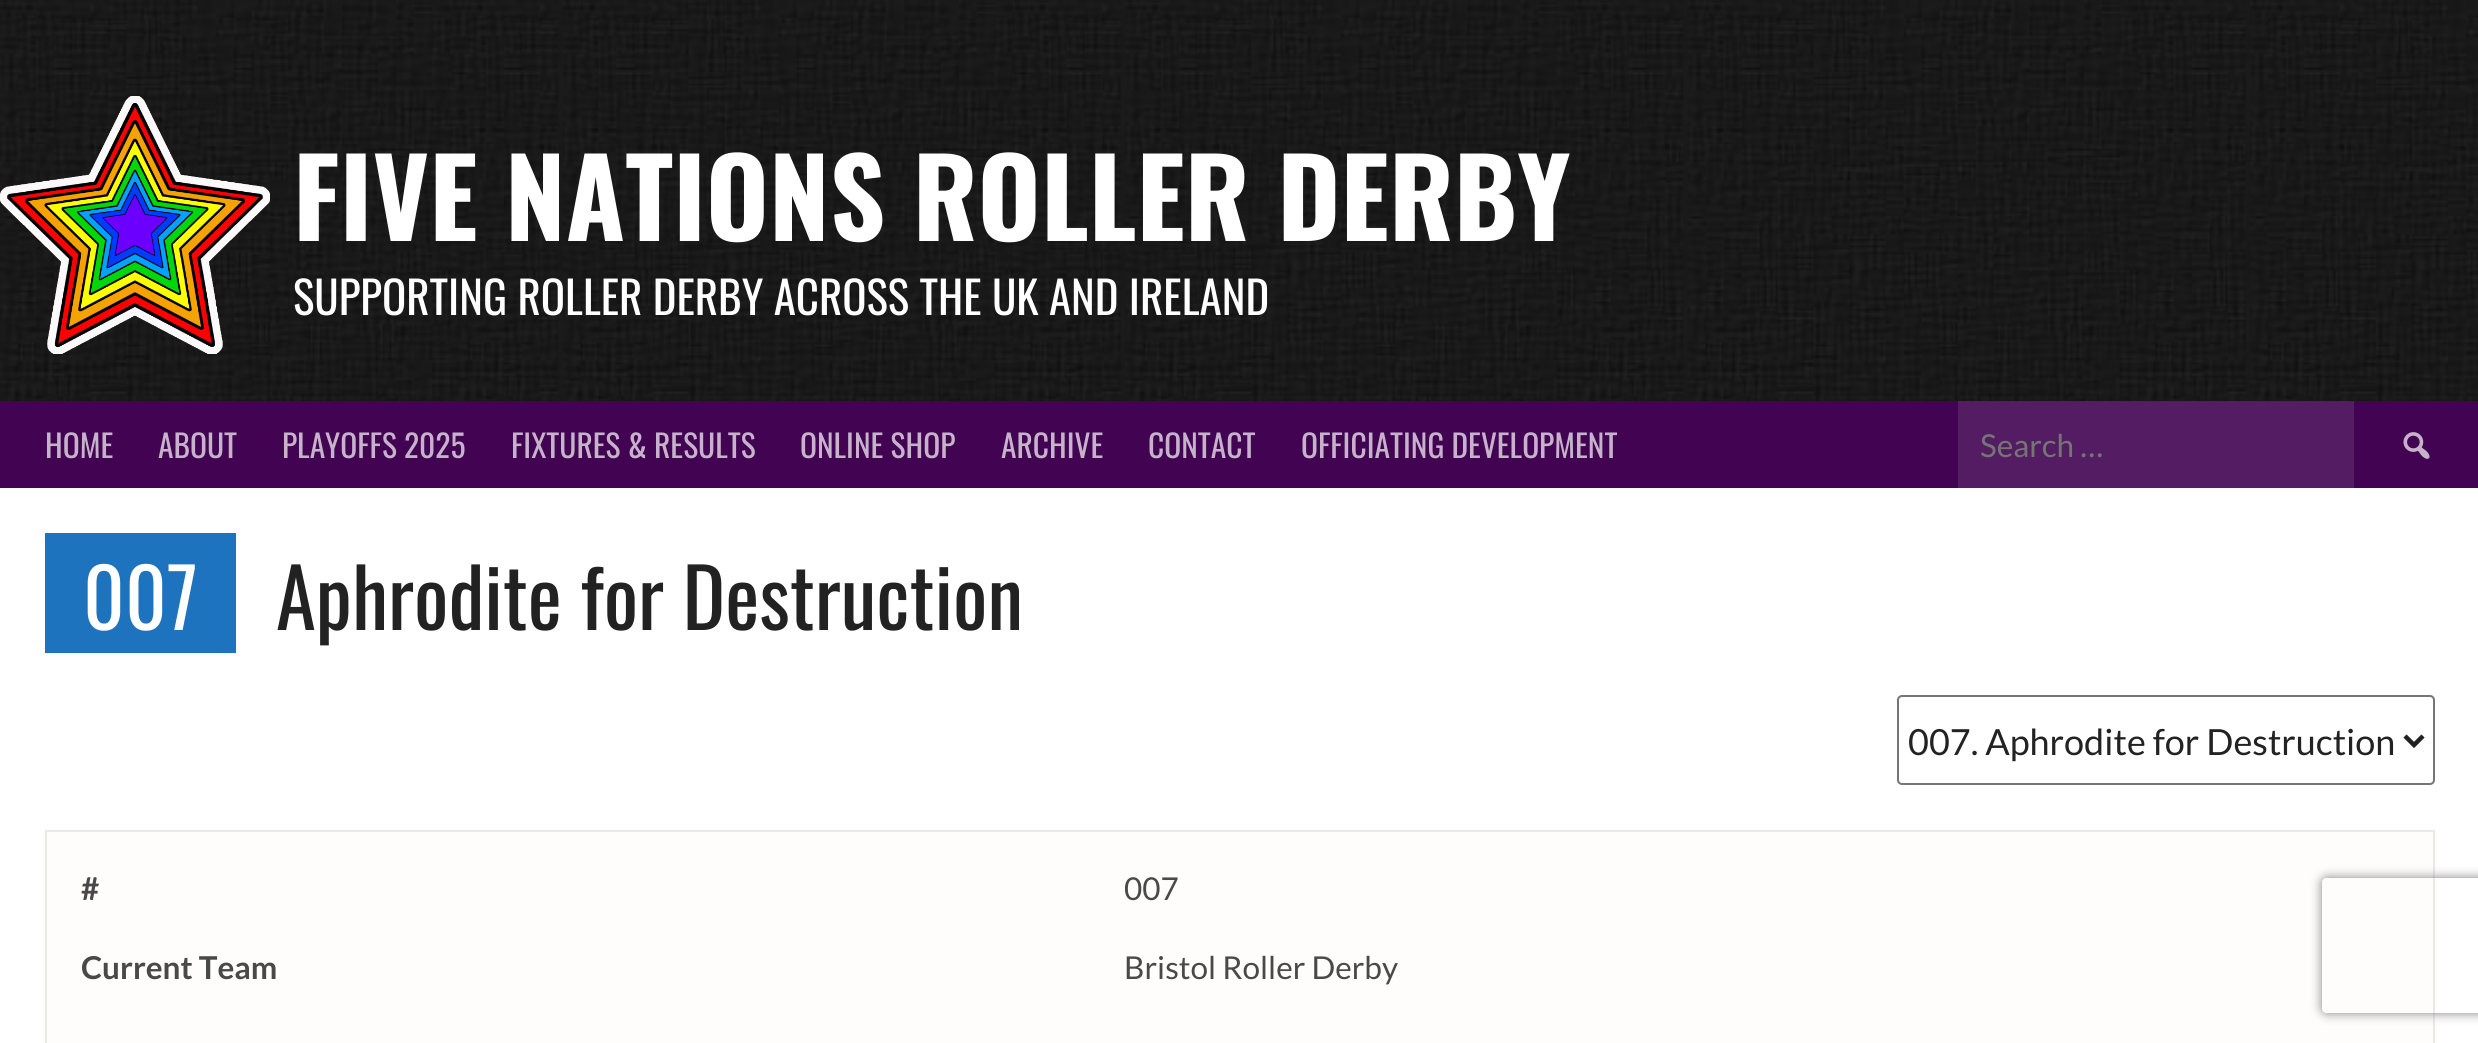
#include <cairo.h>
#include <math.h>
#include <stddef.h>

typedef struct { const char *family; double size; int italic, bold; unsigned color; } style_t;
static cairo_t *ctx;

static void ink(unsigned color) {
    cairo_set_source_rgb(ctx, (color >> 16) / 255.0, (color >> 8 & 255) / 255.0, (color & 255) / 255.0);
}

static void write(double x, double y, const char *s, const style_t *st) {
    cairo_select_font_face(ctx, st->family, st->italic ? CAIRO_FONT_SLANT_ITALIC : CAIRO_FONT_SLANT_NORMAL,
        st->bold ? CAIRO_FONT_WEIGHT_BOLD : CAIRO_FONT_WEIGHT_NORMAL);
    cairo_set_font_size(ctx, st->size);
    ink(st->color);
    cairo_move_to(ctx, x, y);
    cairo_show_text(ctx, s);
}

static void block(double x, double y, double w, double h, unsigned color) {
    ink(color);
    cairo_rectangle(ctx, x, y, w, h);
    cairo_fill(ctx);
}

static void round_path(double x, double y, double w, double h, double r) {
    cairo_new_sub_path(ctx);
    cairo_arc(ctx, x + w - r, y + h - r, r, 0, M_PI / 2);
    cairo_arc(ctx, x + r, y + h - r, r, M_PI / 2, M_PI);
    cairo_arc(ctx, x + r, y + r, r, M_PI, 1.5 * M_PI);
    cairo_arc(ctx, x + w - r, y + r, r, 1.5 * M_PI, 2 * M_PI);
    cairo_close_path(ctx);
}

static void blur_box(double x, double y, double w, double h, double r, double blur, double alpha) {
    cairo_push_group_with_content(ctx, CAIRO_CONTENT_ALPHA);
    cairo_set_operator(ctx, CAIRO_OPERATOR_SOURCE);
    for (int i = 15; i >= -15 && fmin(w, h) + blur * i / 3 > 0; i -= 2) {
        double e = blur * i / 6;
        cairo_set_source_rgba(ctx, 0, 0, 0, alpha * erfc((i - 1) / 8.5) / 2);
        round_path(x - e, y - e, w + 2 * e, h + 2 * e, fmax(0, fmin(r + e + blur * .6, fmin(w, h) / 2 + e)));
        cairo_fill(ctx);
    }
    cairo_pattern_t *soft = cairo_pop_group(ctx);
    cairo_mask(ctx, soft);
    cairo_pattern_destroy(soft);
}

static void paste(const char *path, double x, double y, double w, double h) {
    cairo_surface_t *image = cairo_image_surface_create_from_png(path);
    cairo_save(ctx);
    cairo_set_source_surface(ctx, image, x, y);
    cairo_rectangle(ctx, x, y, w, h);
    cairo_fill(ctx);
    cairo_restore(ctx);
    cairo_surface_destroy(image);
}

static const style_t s1 = {"Oswald", 108, 0, 1, 0xffffff};
static const style_t s2 = {"Oswald", 45, 0, 0, 0xffffff};
static const style_t s3 = {"Oswald", 31.5, 0, 0, 0xc6b3cb};
static const style_t s4 = {"Lato", 31.5, 0, 0, 0x757575};
static const style_t s5 = {"Oswald", 81, 0, 0, 0xffffff};
static const style_t s6 = {"Oswald", 81, 0, 0, 0x222222};
static const style_t s7 = {"Lato", 36, 0, 0, 0x222222};
static const style_t s8 = {"Lato", 31.5, 0, 1, 0x494949};
static const style_t s9 = {"Lato", 31.5, 0, 0, 0x494949};

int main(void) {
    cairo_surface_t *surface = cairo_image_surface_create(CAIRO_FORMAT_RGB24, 2478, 1043);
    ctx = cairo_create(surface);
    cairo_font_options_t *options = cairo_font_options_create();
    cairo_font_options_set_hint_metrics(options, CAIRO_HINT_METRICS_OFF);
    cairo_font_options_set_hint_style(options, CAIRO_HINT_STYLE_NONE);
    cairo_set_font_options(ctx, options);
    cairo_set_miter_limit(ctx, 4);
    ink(0xffffff);
    cairo_paint(ctx);
    paste("pic1.png", 0, 0, 2478, 401);
    paste("pic2.png", 0, 96, 270, 258);
    write(293, 241, "FIVE NATIONS ROLLER DERBY", &s1);
    write(293, 315, "SUPPORTING ROLLER DERBY ACROSS THE UK AND IRELAND", &s2);
    block(0, 401, 2478, 87, 0x410352);
    write(45, 458, "HOME", &s3);
    write(158, 458, "ABOUT", &s3);
    write(282, 458, "PLAYOFFS 2025", &s3);
    write(511, 458, "FIXTURES & RESULTS", &s3);
    write(800, 458, "ONLINE SHOP", &s3);
    write(1001, 458, "ARCHIVE", &s3);
    write(1148, 458, "CONTACT", &s3);
    write(1301, 458, "OFFICIATING DEVELOPMENT", &s3);
    block(1958, 401, 396, 87, 0x541c63);
    write(1980, 457, "Search …", &s4);
    paste("pic3.png", 2403, 432, 27, 27);
    block(45, 533, 191, 120, 0x1e73be);
    write(83, 630, "007", &s5);
    write(276, 630, "Aphrodite for Destruction", &s6);
    round_path(1898, 696, 536, 88, 4);
    ink(0x767676);
    cairo_stroke(ctx);
    cairo_new_path(ctx);
    cairo_move_to(ctx, 2405, 736);
    cairo_line_to(ctx, 2414, 745);
    cairo_line_to(ctx, 2423, 736);
    ink(0x222222);
    cairo_set_line_width(ctx, 4.5);
    cairo_stroke(ctx);
    write(1908, 755, "007. Aphrodite for Destruction", &s7);
    ink(0xfffcfc);
    cairo_rectangle(ctx, 46, 831, 2388, 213);
    cairo_fill_preserve(ctx);
    ink(0xebe8e8);
    cairo_set_line_width(ctx, 2);
    cairo_stroke(ctx);
    write(81, 900, "#", &s8);
    cairo_save(ctx);
    cairo_rectangle(ctx, 1125, 864, 1274, 47);
    cairo_clip(ctx);
    write(1124, 900, "007", &s9);
    cairo_restore(ctx);
    write(81, 979, "Current Team", &s8);
    write(1124, 979, "Bristol Roller Derby", &s9);
    cairo_save(ctx);
    cairo_set_fill_rule(ctx, CAIRO_FILL_RULE_EVEN_ODD);
    cairo_new_path(ctx);
    cairo_move_to(ctx, 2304, 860);
    cairo_line_to(ctx, 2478, 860);
    cairo_line_to(ctx, 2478, 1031);
    cairo_line_to(ctx, 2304, 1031);
    cairo_close_path(ctx);
    cairo_move_to(ctx, 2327, 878);
    cairo_line_to(ctx, 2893, 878);
    cairo_curve_to(ctx, 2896, 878, 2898, 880, 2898, 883);
    cairo_line_to(ctx, 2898, 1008);
    cairo_curve_to(ctx, 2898, 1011, 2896, 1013, 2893, 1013);
    cairo_line_to(ctx, 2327, 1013);
    cairo_curve_to(ctx, 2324, 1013, 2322, 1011, 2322, 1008);
    cairo_line_to(ctx, 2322, 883);
    cairo_curve_to(ctx, 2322, 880, 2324, 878, 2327, 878);
    cairo_close_path(ctx);
    cairo_clip(ctx);
    ink(0x808080);
    blur_box(2322, 878, 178, 135, 5, 5.5, 1);
    cairo_restore(ctx);
    cairo_surface_write_to_png(surface, "screenshot.png");
    cairo_font_options_destroy(options);
    cairo_destroy(ctx);
    cairo_surface_destroy(surface);
    return 0;
}
